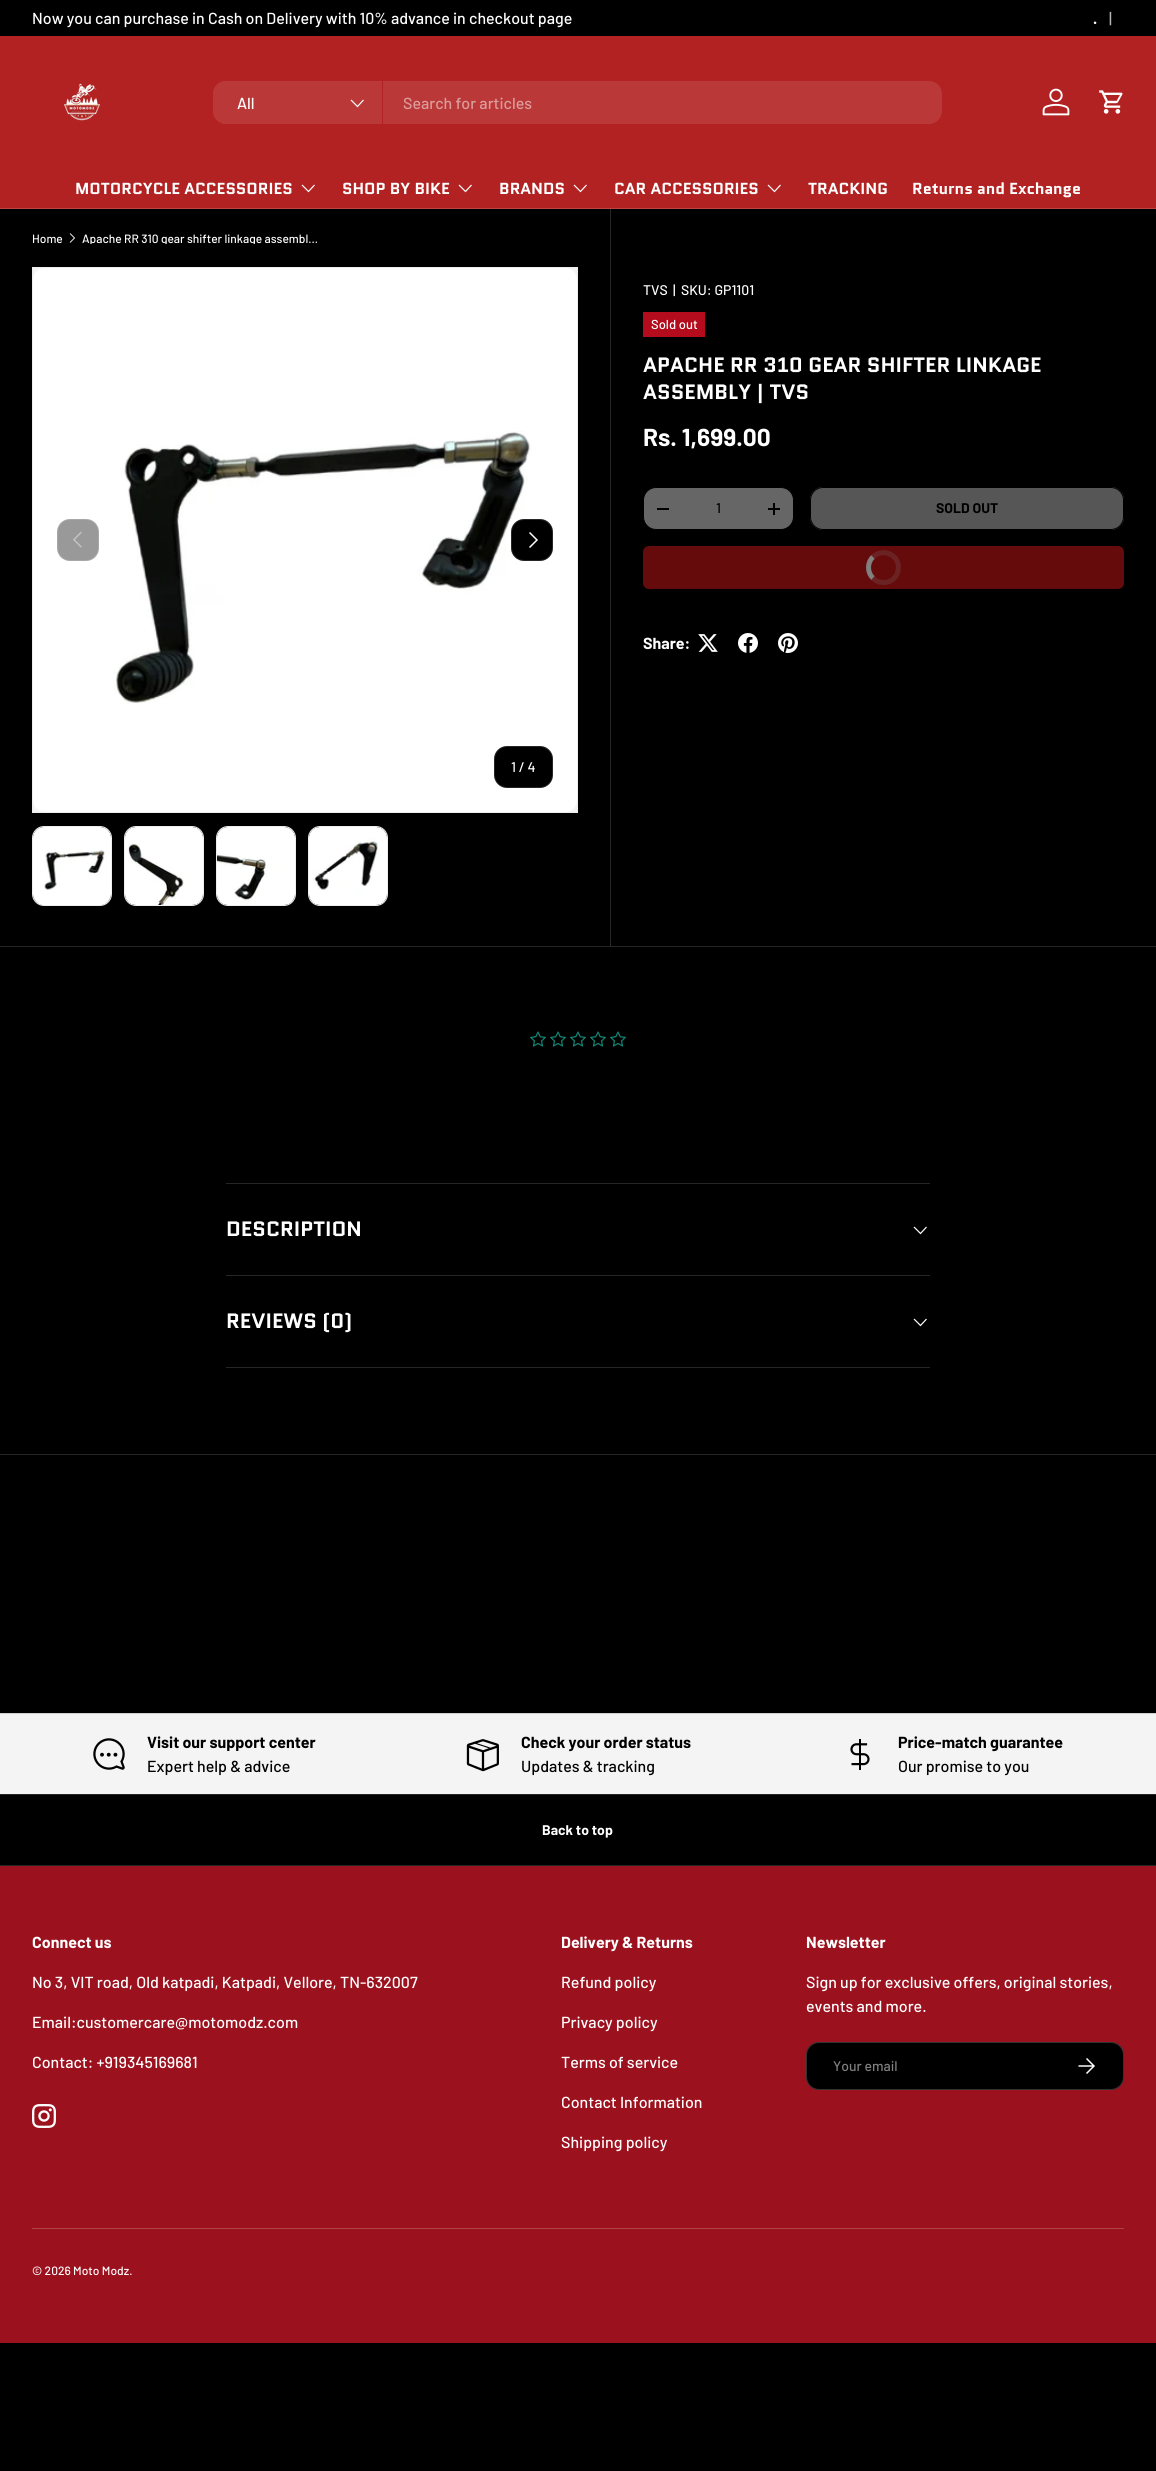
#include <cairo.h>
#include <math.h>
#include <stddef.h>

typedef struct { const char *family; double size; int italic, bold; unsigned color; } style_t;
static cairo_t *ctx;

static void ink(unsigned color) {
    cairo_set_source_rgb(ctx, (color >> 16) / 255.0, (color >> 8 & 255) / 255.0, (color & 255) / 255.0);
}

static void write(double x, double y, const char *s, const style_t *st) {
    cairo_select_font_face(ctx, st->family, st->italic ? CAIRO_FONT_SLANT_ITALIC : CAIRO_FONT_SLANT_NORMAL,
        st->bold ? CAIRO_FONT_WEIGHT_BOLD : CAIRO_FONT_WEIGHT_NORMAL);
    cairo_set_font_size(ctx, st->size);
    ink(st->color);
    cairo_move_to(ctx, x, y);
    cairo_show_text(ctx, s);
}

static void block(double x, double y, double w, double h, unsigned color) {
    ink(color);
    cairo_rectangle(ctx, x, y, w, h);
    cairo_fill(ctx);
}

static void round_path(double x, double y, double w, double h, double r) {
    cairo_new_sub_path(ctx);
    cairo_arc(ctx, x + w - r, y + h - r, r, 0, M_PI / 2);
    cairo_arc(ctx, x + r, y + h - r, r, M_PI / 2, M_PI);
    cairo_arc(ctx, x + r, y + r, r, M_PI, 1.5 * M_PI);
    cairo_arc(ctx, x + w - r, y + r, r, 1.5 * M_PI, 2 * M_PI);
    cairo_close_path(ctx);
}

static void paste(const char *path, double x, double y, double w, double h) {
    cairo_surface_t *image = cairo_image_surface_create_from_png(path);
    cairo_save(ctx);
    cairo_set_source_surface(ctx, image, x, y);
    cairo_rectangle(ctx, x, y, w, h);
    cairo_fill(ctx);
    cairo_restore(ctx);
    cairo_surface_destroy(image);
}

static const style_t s1 = {"Barlow Medium", 16, 0, 0, 0xffffff};
static const style_t s2 = {"Barlow", 16, 0, 1, 0xffffff};
static const style_t s3 = {"Barlow Medium", 16, 0, 0, 0xb3b3b3};
static const style_t s4 = {"Barlow Medium", 16, 0, 0, 0xdd9c9c};
static const style_t s5 = {"Quantico", 16, 0, 1, 0xffffff};
static const style_t s6 = {"Barlow Medium", 12, 0, 0, 0xffffff};
static const style_t s7 = {"Barlow Medium", 14, 0, 0, 0xffffff};
static const style_t s8 = {"Barlow Medium", 13, 0, 0, 0xffffff};
static const style_t s9 = {"Quantico", 20.8, 0, 1, 0xffffff};
static const style_t s10 = {"Barlow", 24.5, 0, 1, 0xffffff};
static const style_t s11 = {"Barlow Medium", 14, 0, 0, 0x000000};
static const style_t s12 = {"Barlow", 14, 0, 1, 0x000000};
static const style_t s13 = {"Barlow", 16, 0, 1, 0x000000};
static const style_t s14 = {"Barlow Medium", 16, 0, 0, 0x000000};
static const style_t s15 = {"Barlow", 14, 0, 1, 0xffffff};
static const style_t s16 = {"Barlow Medium", 14, 0, 0, 0x808080};

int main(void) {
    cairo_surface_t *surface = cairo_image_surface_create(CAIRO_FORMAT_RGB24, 1156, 2471);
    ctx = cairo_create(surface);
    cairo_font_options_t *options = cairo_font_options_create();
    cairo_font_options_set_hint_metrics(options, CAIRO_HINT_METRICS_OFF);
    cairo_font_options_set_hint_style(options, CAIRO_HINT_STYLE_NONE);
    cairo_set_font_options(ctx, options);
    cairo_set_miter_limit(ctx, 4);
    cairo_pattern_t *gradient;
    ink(0x000000);
    cairo_paint(ctx);
    write(32, 24, "Now you can purchase in Cash on Delivery with 10% advance in checkout page", &s1);
    write(1093, 24, ".", &s2);
    write(1109, 24, "|", &s3);
    block(0, 36, 1156, 172, 0xb22222);
    block(0, 208, 1156, 1, 0xbe4343);
    paste("pic1.png", 64, 83, 36, 38);
    ink(0xba3838);
    round_path(213, 81, 729, 43, 13);
    cairo_fill(ctx);
    cairo_new_path(ctx);
    cairo_move_to(ctx, 226, 81);
    cairo_line_to(ctx, 383, 81);
    cairo_line_to(ctx, 383, 124);
    cairo_line_to(ctx, 226, 124);
    cairo_curve_to(ctx, 219, 124, 213, 118, 213, 111);
    cairo_line_to(ctx, 213, 94);
    cairo_curve_to(ctx, 213, 87, 219, 81, 226, 81);
    cairo_close_path(ctx);
    cairo_fill(ctx);
    block(382, 81, 1, 43, 0xb22222);
    write(237, 109, "All", &s1);
    cairo_new_path(ctx);
    cairo_move_to(ctx, 363.5, 100);
    cairo_line_to(ctx, 357.5, 106.5);
    cairo_line_to(ctx, 351, 100);
    cairo_set_line_width(ctx, 1.2);
    cairo_stroke(ctx);
    write(403, 109, "Search for articles", &s4);
    paste("pic2.png", 1042, 88, 28, 28);
    paste("pic3.png", 1099, 90, 24, 24);
    write(75, 194, "MOTORCYCLE ACCESSORIES", &s5);
    cairo_new_path(ctx);
    cairo_move_to(ctx, 314.5, 185);
    cairo_line_to(ctx, 308.5, 191.5);
    cairo_line_to(ctx, 302, 185);
    cairo_stroke(ctx);
    write(342, 194, "SHOP BY BIKE", &s5);
    cairo_new_path(ctx);
    cairo_move_to(ctx, 471.5, 185);
    cairo_line_to(ctx, 465.5, 191.5);
    cairo_line_to(ctx, 459, 185);
    cairo_stroke(ctx);
    write(499, 194, "BRANDS", &s5);
    cairo_new_path(ctx);
    cairo_move_to(ctx, 586.5, 185);
    cairo_line_to(ctx, 580.5, 191.5);
    cairo_line_to(ctx, 574, 185);
    cairo_stroke(ctx);
    write(614, 194, "CAR ACCESSORIES", &s5);
    cairo_new_path(ctx);
    cairo_move_to(ctx, 780.5, 185);
    cairo_line_to(ctx, 774.5, 191.5);
    cairo_line_to(ctx, 768, 185);
    cairo_stroke(ctx);
    write(808, 194, "TRACKING", &s5);
    write(912, 194, "Returns and Exchange", &s5);
    write(32, 243, "Home", &s6);
    cairo_new_path(ctx);
    cairo_move_to(ctx, 70, 233.5);
    cairo_line_to(ctx, 74.5, 238);
    cairo_line_to(ctx, 70, 242.5);
    cairo_set_line_width(ctx, 0.9);
    cairo_stroke(ctx);
    cairo_save(ctx);
    cairo_rectangle(ctx, 82, 232, 240, 12);
    cairo_clip(ctx);
    write(82, 243, "Apache RR 310 gear shifter linkage assembl…", &s6);
    cairo_restore(ctx);
    block(0, 946, 1156, 1, 0x262626);
    block(610, 209, 1, 738, 0x262626);
    write(643, 295, "TVS", &s7);
    write(673, 295, "|", &s7);
    write(681, 295, "SKU: GP1101", &s7);
    block(643, 312, 62, 25, 0xb40c1c);
    write(651, 329, "Sold out", &s8);
    write(643, 372, "APACHE RR 310 GEAR SHIFTER LINKAGE", &s9);
    write(643, 399, "ASSEMBLY | TVS", &s9);
    write(643, 446, "Rs. 1,699.00", &s10);
    ink(0x666666);
    round_path(643.5, 487.5, 150, 42, 12.5);
    cairo_fill_preserve(ctx);
    ink(0x000000);
    cairo_set_line_width(ctx, 1);
    cairo_stroke(ctx);
    block(657, 508, 12, 2, 0x000000);
    write(716, 513, "1", &s11);
    block(768, 508, 12, 2, 0x000000);
    block(773, 503, 2, 12, 0x000000);
    ink(0x5c5c5c);
    round_path(810, 487, 314, 43, 13);
    cairo_fill(ctx);
    cairo_save(ctx);
    round_path(810, 487, 314, 43, 13);
    cairo_clip(ctx);
    gradient = cairo_pattern_create_linear(834, 397, 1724, 620);
    cairo_pattern_add_color_stop_rgba(gradient, 0.6, 0, 0, 0, 0.07);
    cairo_pattern_add_color_stop_rgba(gradient, 0.6, 0.4, 0.4, 0.4, 1);
    cairo_pattern_add_color_stop_rgba(gradient, 1, 0.4, 0.4, 0.4, 1);
    cairo_set_source(ctx, gradient);
    cairo_pattern_destroy(gradient);
    cairo_rectangle(ctx, 811, 488, 313, 41);
    cairo_fill(ctx);
    cairo_restore(ctx);
    round_path(810.5, 487.5, 313, 42, 12.5);
    ink(0x000000);
    cairo_stroke(ctx);
    write(936, 513, "SOLD OUT", &s12);
    ink(0x660b0c);
    round_path(643, 546, 481, 43, 6);
    cairo_fill(ctx);
    cairo_new_path(ctx);
    cairo_move_to(ctx, 873, 557);
    cairo_curve_to(ctx, 876.5, 553.5, 881.5, 552, 886.5, 553);
    cairo_curve_to(ctx, 904, 556.5, 901.5, 582.5, 883.5, 582.5);
    cairo_curve_to(ctx, 879.5, 582.5, 875.5, 581, 873, 578);
    ink(0x6b2223);
    cairo_set_line_width(ctx, 5);
    cairo_stroke(ctx);
    cairo_new_path(ctx);
    cairo_move_to(ctx, 873, 578);
    cairo_curve_to(ctx, 867, 572.5, 867, 562.5, 873, 557);
    ink(0x808080);
    cairo_stroke(ctx);
    write(643, 649, "Share:", &s2);
    paste("pic4.png", 698, 634, 20, 18);
    paste("pic5.png", 738, 633, 20, 20);
    paste("pic6.png", 778, 633, 20, 20);
    ink(0xf4f4f4);
    cairo_rectangle(ctx, 32.5, 267.5, 545, 545);
    cairo_fill_preserve(ctx);
    ink(0xeeeeee);
    cairo_set_line_width(ctx, 1);
    cairo_stroke(ctx);
    ink(0xffffff);
    round_path(33, 268, 544, 544, 12);
    cairo_fill(ctx);
    paste("pic7.png", 114, 431, 418, 273);
    ink(0x999999);
    round_path(57, 519, 42, 42, 13);
    cairo_fill(ctx);
    round_path(57.5, 519.5, 41, 41, 12.5);
    cairo_set_source_rgba(ctx, 1, 1, 1, 0.15);
    cairo_stroke(ctx);
    paste("pic8.png", 73, 531, 9, 17);
    ink(0x000000);
    round_path(511, 519, 42, 42, 13);
    cairo_fill(ctx);
    round_path(511.5, 519.5, 41, 41, 12.5);
    cairo_set_source_rgba(ctx, 1, 1, 1, 0.15);
    cairo_stroke(ctx);
    cairo_new_path(ctx);
    cairo_move_to(ctx, 529.5, 532.5);
    cairo_line_to(ctx, 537, 540);
    cairo_line_to(ctx, 529.5, 547.5);
    ink(0xffffff);
    cairo_set_line_width(ctx, 1.5);
    cairo_stroke(ctx);
    ink(0x000000);
    round_path(494, 746, 59, 42, 13);
    cairo_fill(ctx);
    round_path(494.5, 746.5, 58, 41, 12.5);
    cairo_set_source_rgba(ctx, 1, 1, 1, 0.15);
    cairo_set_line_width(ctx, 1);
    cairo_stroke(ctx);
    write(511, 772, "1 / 4", &s7);
    round_path(32.5, 826.5, 79, 79, 11.5);
    ink(0xeeeeee);
    cairo_stroke(ctx);
    paste("pic9.png", 33, 827, 78, 78);
    cairo_save(ctx);
    round_path(33, 827, 78, 78, 11);
    cairo_clip(ctx);
    block(33, 903, 78, 2, 0xffffff);
    cairo_restore(ctx);
    round_path(124.5, 826.5, 79, 79, 11.5);
    cairo_stroke(ctx);
    paste("pic10.png", 125, 827, 78, 78);
    round_path(216.5, 826.5, 79, 79, 11.5);
    cairo_stroke(ctx);
    paste("pic11.png", 217, 827, 78, 78);
    round_path(308.5, 826.5, 79, 79, 11.5);
    cairo_stroke(ctx);
    paste("pic12.png", 309, 827, 78, 78);
    paste("pic13.png", 530, 1031, 16, 16);
    paste("pic13.png", 550, 1031, 16, 16);
    paste("pic13.png", 570, 1031, 16, 16);
    paste("pic13.png", 590, 1031, 16, 16);
    paste("pic13.png", 610, 1031, 16, 16);
    block(226, 1183, 704, 1, 0x262626);
    block(226, 1275, 704, 1, 0x262626);
    write(226, 1236, "DESCRIPTION", &s9);
    cairo_new_path(ctx);
    cairo_move_to(ctx, 926.5, 1227);
    cairo_line_to(ctx, 920.5, 1233.5);
    cairo_line_to(ctx, 914, 1227);
    cairo_set_line_width(ctx, 1.2);
    cairo_stroke(ctx);
    block(226, 1367, 704, 1, 0x262626);
    write(226, 1328, "REVIEWS (0)", &s9);
    cairo_new_path(ctx);
    cairo_move_to(ctx, 926.5, 1319);
    cairo_line_to(ctx, 920.5, 1325.5);
    cairo_line_to(ctx, 914, 1319);
    cairo_stroke(ctx);
    block(0, 1454, 1156, 1, 0x262626);
    block(0, 1714, 1156, 80, 0xf4f4f4);
    block(0, 1713, 1156, 1, 0xcfcfcf);
    paste("pic14.png", 93, 1738, 32, 32);
    write(147, 1748, "Visit our support center", &s13);
    write(147, 1772, "Expert help & advice", &s14);
    paste("pic15.png", 466, 1739, 33, 33);
    write(521, 1748, "Check your order status", &s13);
    write(521, 1772, "Updates & tracking", &s14);
    paste("pic16.png", 850, 1739, 20, 31);
    write(898, 1748, "Price-match guarantee", &s13);
    write(898, 1772, "Our promise to you", &s14);
    block(0, 1794, 1156, 1, 0x262626);
    block(0, 1865, 1156, 1, 0x262626);
    write(542, 1835, "Back to top", &s15);
    block(0, 1866, 1156, 477, 0x9b111e);
    write(32, 1948, "Connect us", &s2);
    write(32, 1988, "No 3, VIT road, Old katpadi, Katpadi, Vellore, TN-632007", &s1);
    write(32, 2028, "Email:customercare@motomodz.com", &s1);
    write(32, 2068, "Contact: +919345169681", &s1);
    paste("pic17.png", 32, 2104, 24, 24);
    write(561, 1948, "Delivery & Returns", &s2);
    write(561, 1988, "Refund policy", &s1);
    write(561, 2028, "Privacy policy", &s1);
    write(561, 2068, "Terms of service", &s1);
    write(561, 2108, "Contact Information", &s1);
    write(561, 2148, "Shipping policy", &s1);
    write(806, 1948, "Newsletter", &s2);
    write(806, 1988, "Sign up for exclusive offers, original stories,", &s1);
    write(806, 2012, "events and more.", &s1);
    ink(0x000000);
    round_path(806, 2042, 318, 48, 13);
    cairo_fill(ctx);
    round_path(806.5, 2042.5, 317, 47, 12.5);
    cairo_set_source_rgba(ctx, 1, 1, 1, 0.2);
    cairo_set_line_width(ctx, 1);
    cairo_stroke(ctx);
    write(833, 2071, "Your email", &s16);
    cairo_new_path(ctx);
    cairo_move_to(ctx, 1078.5, 2066);
    cairo_line_to(ctx, 1093.5, 2066);
    cairo_move_to(ctx, 1086.5, 2058.5);
    cairo_line_to(ctx, 1094, 2066);
    cairo_line_to(ctx, 1086.5, 2073.5);
    ink(0xffffff);
    cairo_set_line_width(ctx, 1.5);
    cairo_stroke(ctx);
    block(32, 2228, 1092, 1, 0xaf414b);
    write(32, 2275, "© 2026 Moto Modz.", &s6);
    cairo_surface_write_to_png(surface, "screenshot.png");
    cairo_font_options_destroy(options);
    cairo_destroy(ctx);
    cairo_surface_destroy(surface);
    return 0;
}
